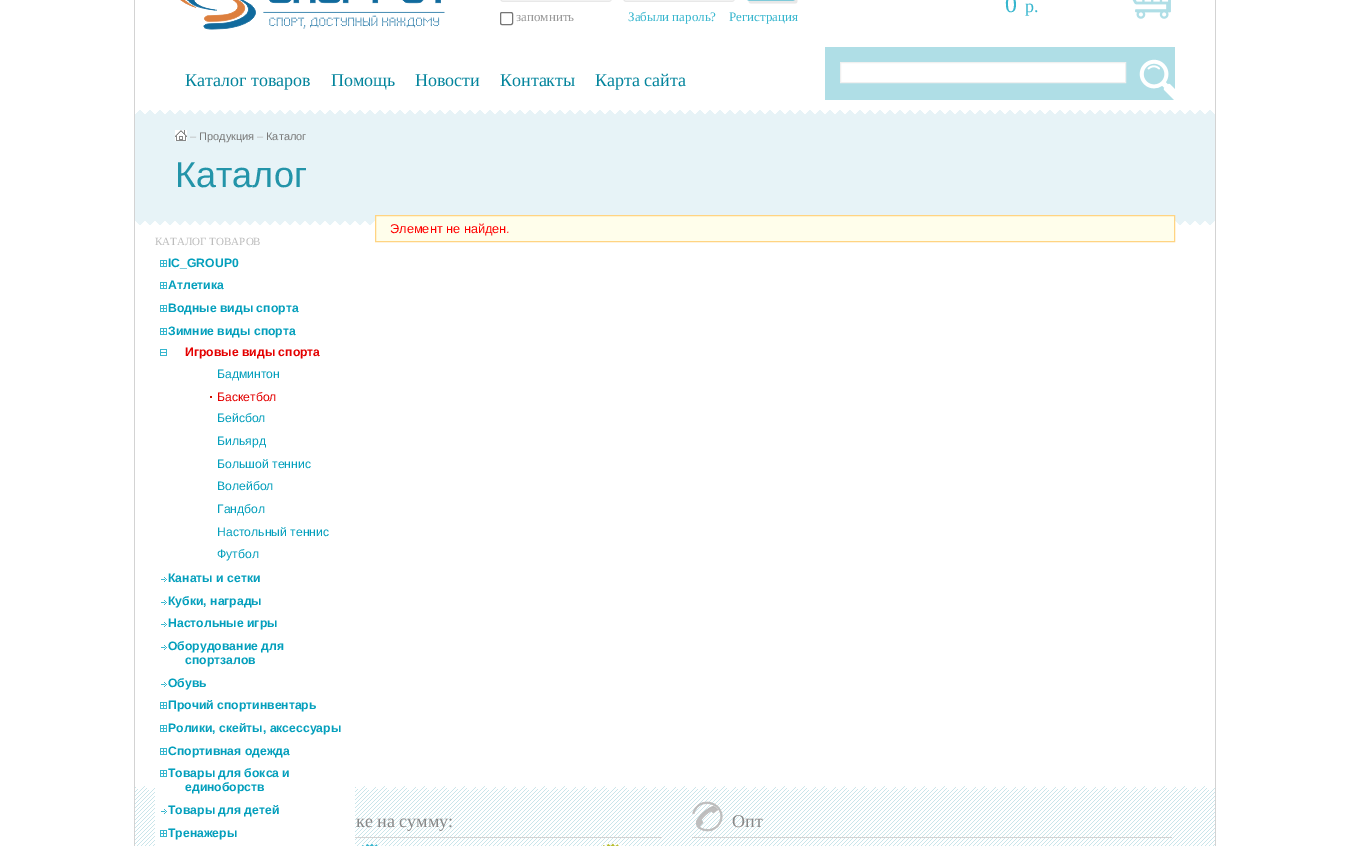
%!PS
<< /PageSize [1350 846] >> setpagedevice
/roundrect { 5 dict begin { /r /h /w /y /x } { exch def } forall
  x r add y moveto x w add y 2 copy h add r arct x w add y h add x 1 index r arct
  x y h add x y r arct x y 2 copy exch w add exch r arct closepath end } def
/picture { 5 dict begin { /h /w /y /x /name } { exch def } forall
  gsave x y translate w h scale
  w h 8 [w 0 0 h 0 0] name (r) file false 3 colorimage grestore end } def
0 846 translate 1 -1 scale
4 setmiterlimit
1 setgray
0 0 1350 846 rectfill
0.827 setgray
1215 0 1 846 rectfill
134 0 1 846 rectfill
(img1.rgb) 180 0 265 30 picture
/LiberationSerif-Regular [24 0 0 -24 0 0] selectfont
0.216 0.714 0.808 setrgbcolor
1005 12 moveto (0) show
/LiberationSerif-Regular [18 0 0 -18 0 0] selectfont
1025 12 moveto (р.) show
(img2.rgb) 1132 0 39 19 picture
(img3.rgb) 500 0 112 2 picture
(img3.rgb) 623 0 112 2 picture
(img4.rgb) 747 0 51 4 picture
0.463 setgray
500.5 12.5 12 12 1.5 roundrect stroke
/LiberationSerif-Regular [13 0 0 -13 0 0] selectfont
0.6 setgray
516 21 moveto (запомнить) show
0.216 0.714 0.808 setrgbcolor
628 21 moveto (Забыли пароль?) show
729 21 moveto (Регистрация) show
/LiberationSerif-Regular [18 0 0 -18 0 0] selectfont
0.016 0.522 0.616 setrgbcolor
185 86 moveto (Каталог товаров) show
331 86 moveto (Помощь) show
415 86 moveto (Новости) show
500 86 moveto (Контакты) show
595 86 moveto (Карта сайта) show
(img5.rgb) 825 47 350 53 picture
1 setgray
newpath 840.5 62.5 moveto 1125.5 62.5 lineto 1125.5 82.5 lineto 840.5 82.5 lineto closepath gsave fill grestore
0.941 setgray
stroke
(img6.rgb) 135 110 1080 43 picture
(img7.rgb) 175 130 12 11 picture
/LiberationSans-Italic [11 0 0 -11 0 0] selectfont
0.737 setgray
190 140 moveto (–) show
/LiberationSans-Regular [11 0 0 -11 0 0] selectfont
0.478 setgray
199 140 moveto (Продукция) show
/LiberationSans-Italic [11 0 0 -11 0 0] selectfont
0.737 setgray
257 140 moveto (–) show
/LiberationSans-Regular [11 0 0 -11 0 0] selectfont
0.478 setgray
266 140 moveto (Каталог) show
(img8.rgb) 135 153 1080 72 picture
/LiberationSans-Regular [36 0 0 -36 0 0] selectfont
0.137 0.58 0.663 setrgbcolor
175 187 moveto (Каталог) show
1 0.996 0.922 setrgbcolor
newpath 375.5 215.5 moveto 1174.5 215.5 lineto 1174.5 241.5 lineto 375.5 241.5 lineto closepath gsave fill grestore
1 0.831 0.51 setrgbcolor
stroke
/LiberationSans-Regular [12.75 0 0 -12.75 0 0] selectfont
1 0 0 setrgbcolor
390 233 moveto (Элемент не найден.) show
(img12.rgb) 135 786 1080 60 picture
1 setgray
155 786 200 60 rectfill
/LiberationSerif-Regular [11 0 0 -11 0 0] selectfont
0.737 setgray
155 245 moveto (КАТАЛОГ ТОВАРОВ) show
(img9.rgb) 160 260 7 7 picture
/LiberationSans-Bold [12.2 0 0 -12.2 0 0] selectfont
0.012 0.624 0.737 setrgbcolor
168 267 moveto (IC_GROUP0) show
(img9.rgb) 160 282 7 7 picture
168 289 moveto (Атлетика) show
(img9.rgb) 160 305 7 7 picture
168 312 moveto (Водные виды спорта) show
(img9.rgb) 160 328 7 7 picture
168 335 moveto (Зимние виды спорта) show
(img10.rgb) 160 349 7 7 picture
0.894 0 0 setrgbcolor
185 356 moveto (Игровые виды спорта) show
/LiberationSans-Regular [12.2 0 0 -12.2 0 0] selectfont
0.012 0.624 0.737 setrgbcolor
217 378 moveto (Бадминтон) show
0.8 0.075 0 setrgbcolor
210 396 2 2 rectfill
0.894 0 0 setrgbcolor
217 401 moveto (Баскетбол) show
0.012 0.624 0.737 setrgbcolor
217 422 moveto (Бейсбол) show
217 445 moveto (Бильярд) show
217 468 moveto (Большой теннис) show
217 490 moveto (Волейбол) show
217 513 moveto (Гандбол) show
217 536 moveto (Настольный теннис) show
217 558 moveto (Футбол) show
(img11.rgb) 161 577 6 5 picture
/LiberationSans-Bold [12.2 0 0 -12.2 0 0] selectfont
168 582 moveto (Канаты и сетки) show
(img11.rgb) 161 600 6 5 picture
168 605 moveto (Кубки, награды) show
(img11.rgb) 161 622 6 5 picture
168 627 moveto (Настольные игры) show
(img11.rgb) 161 645 6 5 picture
168 650 moveto (Оборудование для) show
185 664 moveto (спортзалов) show
(img11.rgb) 161 682 6 5 picture
168 687 moveto (Обувь) show
(img9.rgb) 160 702 7 7 picture
168 709 moveto (Прочий спортинвентарь) show
(img9.rgb) 160 725 7 7 picture
168 732 moveto (Ролики, скейты, аксессуары) show
(img9.rgb) 160 748 7 7 picture
168 755 moveto (Спортивная одежда) show
(img9.rgb) 160 770 7 7 picture
168 777 moveto (Товары для бокса и) show
185 791 moveto (единоборств) show
(img11.rgb) 161 809 6 5 picture
168 814 moveto (Товары для детей) show
(img9.rgb) 160 830 7 7 picture
168 837 moveto (Тренажеры) show
0.827 setgray
355 837 307 1 rectfill
/LiberationSerif-Regular [18 0 0 -18 0 0] selectfont
0.533 setgray
356 827 moveto (ке на сумму:) show
(img13.rgb) 361 843 261 3 picture
(img14.rgb) 692 801 31 31 picture
0.827 setgray
692 837 480 1 rectfill
0.533 setgray
732 827 moveto (Опт) show
showpage
